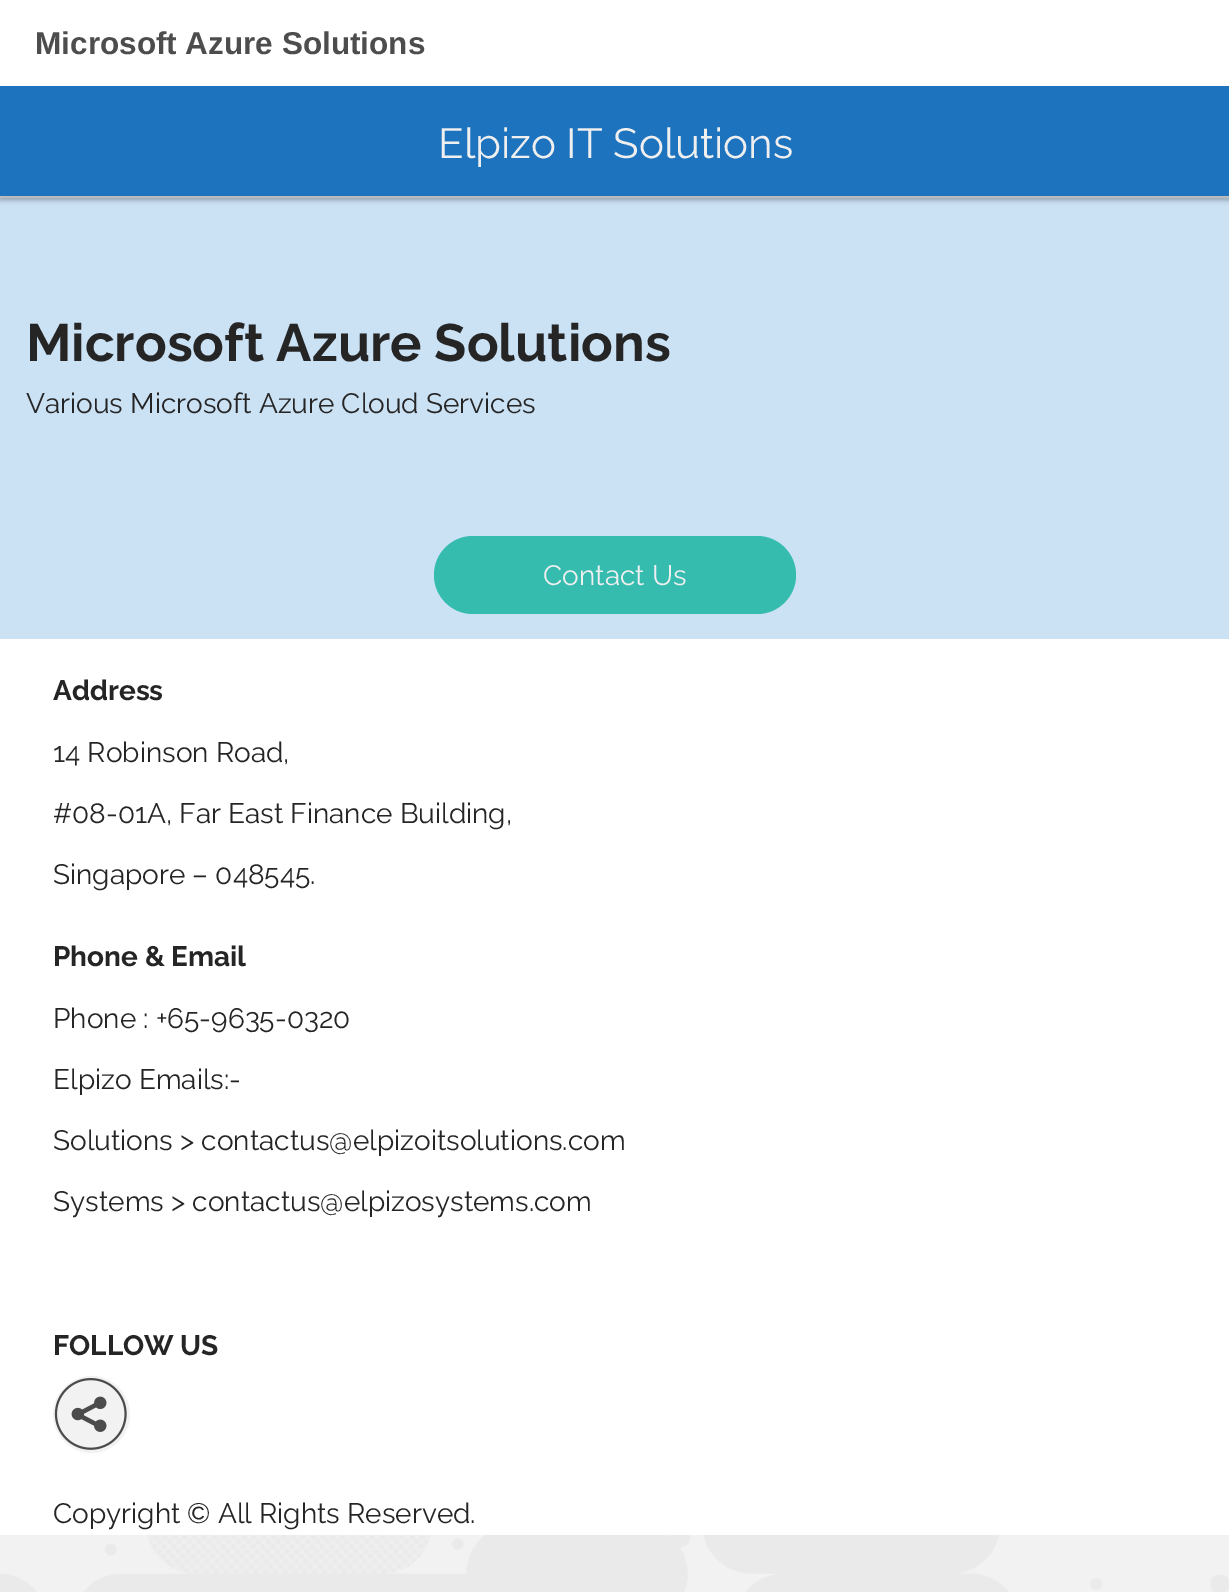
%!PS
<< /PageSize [1229 1592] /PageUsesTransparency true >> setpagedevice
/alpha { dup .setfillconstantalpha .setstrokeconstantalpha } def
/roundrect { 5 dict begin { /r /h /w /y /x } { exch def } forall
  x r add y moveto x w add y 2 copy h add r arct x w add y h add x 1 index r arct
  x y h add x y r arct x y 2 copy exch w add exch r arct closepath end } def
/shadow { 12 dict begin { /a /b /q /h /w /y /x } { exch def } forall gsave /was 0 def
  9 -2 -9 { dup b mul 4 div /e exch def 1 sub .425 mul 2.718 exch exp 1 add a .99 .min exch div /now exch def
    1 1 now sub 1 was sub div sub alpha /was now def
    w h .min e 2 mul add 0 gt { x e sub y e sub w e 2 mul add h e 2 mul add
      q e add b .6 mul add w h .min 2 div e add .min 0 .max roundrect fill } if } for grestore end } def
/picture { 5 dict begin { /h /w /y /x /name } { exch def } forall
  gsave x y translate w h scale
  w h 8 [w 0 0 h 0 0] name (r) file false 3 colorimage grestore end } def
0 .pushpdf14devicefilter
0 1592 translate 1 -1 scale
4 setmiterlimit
0.949 setgray
0 0 1229 1592 rectfill
(img1.rgb) 0 1535 1229 57 picture
0.796 0.882 0.957 setrgbcolor
0 198 1229 441 rectfill
0 setgray
0 2 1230 198 0 2.5 0.3 shadow
1 setgray
0 0 1229 86 rectfill
0.733 setgray
0 196 1229 2 rectfill
/LiberationSans-Bold [31.5 0 0 -31.5 0 0] selectfont
0.302 setgray
35 54 moveto (Microsoft Azure Solutions) show
0.118 0.451 0.745 setrgbcolor
0 86 1229 110 rectfill
/Raleway-Regular [42 0 0 -42 0 0] selectfont
0.937 setgray
438 158 moveto (Elpizo IT Solutions) show
/Raleway-Bold [52.5 0 0 -52.5 0 0] selectfont
0.145 setgray
26 361 moveto (Microsoft Azure Solutions) show
/Raleway-Regular [28 0 0 -28 0 0] selectfont
26 413 moveto (Various Microsoft Azure Cloud Services) show
0.208 0.737 0.686 setrgbcolor
434 536 362 78 39 roundrect fill
0.937 setgray
543 585 moveto (Contact Us) show
1 setgray
0 639 1229 896 rectfill
/Raleway-Bold [28 0 0 -28 0 0] selectfont
0.145 setgray
53 700 moveto (Address) show
/Raleway-Regular [28 0 0 -28 0 0] selectfont
53 762 moveto (14 Robinson Road,) show
53 823 moveto (#08-01A, Far East Finance Building,) show
53 884 moveto (Singapore – 048545.) show
/Raleway-Bold [28 0 0 -28 0 0] selectfont
53 966 moveto (Phone & Email) show
/Raleway-Regular [28 0 0 -28 0 0] selectfont
53 1028 moveto (Phone : +65-9635-0320) show
53 1089 moveto (Elpizo Emails:-) show
53 1150 moveto (Solutions > contactus@elpizoitsolutions.com) show
53 1211 moveto (Systems > contactus@elpizosystems.com) show
/Raleway-Bold [28 0 0 -28 0 0] selectfont
53 1355 moveto (FOLLOW US) show
0.949 setgray
newpath 91.5 1414.5 38.5 0 360 arc closepath fill
(img2.rgb) 54 1378 73 72 picture
/Raleway-Regular [28 0 0 -28 0 0] selectfont
0.145 setgray
53 1523 moveto (Copyright © All Rights Reserved.) show
.poppdf14devicefilter showpage
